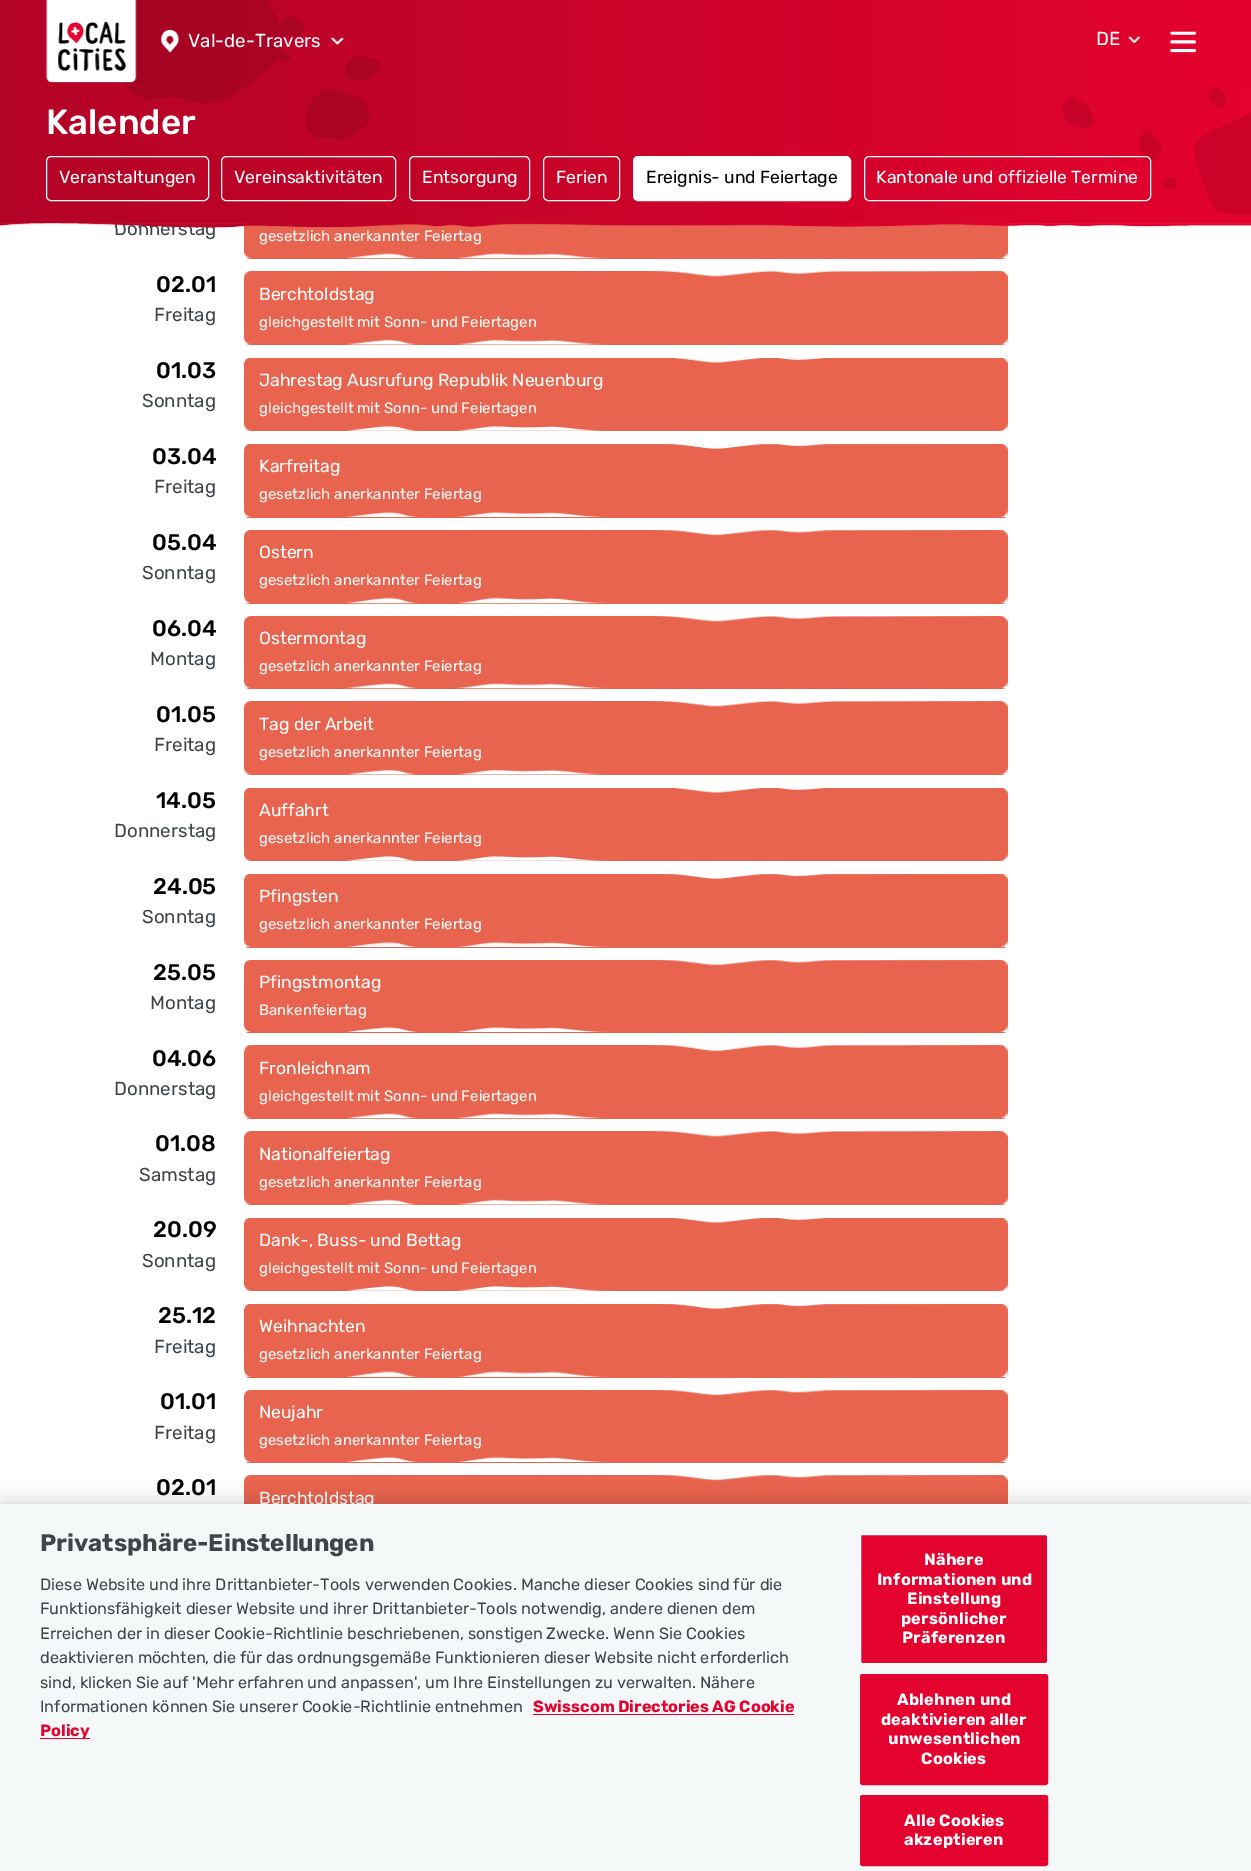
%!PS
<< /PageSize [1251 1871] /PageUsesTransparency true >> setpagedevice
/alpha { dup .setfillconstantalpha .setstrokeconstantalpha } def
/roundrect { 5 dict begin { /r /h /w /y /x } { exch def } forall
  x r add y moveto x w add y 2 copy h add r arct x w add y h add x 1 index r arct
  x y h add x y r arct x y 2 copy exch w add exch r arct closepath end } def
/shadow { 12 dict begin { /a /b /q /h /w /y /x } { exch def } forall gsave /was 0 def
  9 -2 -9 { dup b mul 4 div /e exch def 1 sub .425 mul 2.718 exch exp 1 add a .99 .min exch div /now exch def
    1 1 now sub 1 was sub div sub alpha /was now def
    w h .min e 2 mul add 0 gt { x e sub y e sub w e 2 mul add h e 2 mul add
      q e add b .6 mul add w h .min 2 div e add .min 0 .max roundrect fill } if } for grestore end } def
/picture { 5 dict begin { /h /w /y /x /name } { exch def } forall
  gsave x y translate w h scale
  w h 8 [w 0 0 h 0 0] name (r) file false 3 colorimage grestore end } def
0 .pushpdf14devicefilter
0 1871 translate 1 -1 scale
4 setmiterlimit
1 setgray
0 0 1251 1871 rectfill
/Rubik-Regular [18.75 0 0 -18.75 0 0] selectfont
0.243 0.267 0.286 setrgbcolor
114 235 moveto (Donnerstag) show
0.914 0.392 0.31 setrgbcolor
244 186 764 73 5 roundrect fill
gsave newpath 0 0 moveto 1251 0 lineto 1251 223 lineto 0 223 lineto closepath clip newpath
<< /ShadingType 2 /ColorSpace /DeviceRGB /Coords [0 111 1251 111] /Extend [true true] /Function << /FunctionType 2 /Domain [0 1] /C0 [0.702 0.012 0.149] /C1 [0.894 0.008 0.18] /N 1 >> >> shfill grestore
(img1.rgb) 124 0 257 140 picture
(img2.rgb) 46 0 91 83 picture
(img3.rgb) 161 30 19 23 picture
1 setgray
188 47 moveto (Val-de-Travers) show
(img4.rgb) 331 37 13 8 picture
1096 45 moveto (DE) show
(img5.rgb) 1128 36 12 7 picture
(img6.rgb) 1169 31 28 22 picture
/Rubik-Medium [35 0 0 -35 0 0] selectfont
46 134 moveto (Kalender) show
46.5 156.5 162 44 4.5 roundrect stroke
/Rubik-Regular [17.5 0 0 -17.5 0 0] selectfont
59 183 moveto (Veranstaltungen) show
221.5 156.5 174 44 4.5 roundrect stroke
234 183 moveto (Vereinsaktivitäten) show
409.5 156.5 120 44 4.5 roundrect stroke
422 183 moveto (Entsorgung) show
543.5 156.5 76 44 4.5 roundrect stroke
556 183 moveto (Ferien) show
633.5 156.5 217 44 4.5 roundrect gsave fill grestore
stroke
0 setgray
646 183 moveto (Ereignis- und Feiertage) show
(img7.rgb) 1063 88 188 127 picture
1 setgray
864.5 156.5 286 44 4.5 roundrect stroke
876 183 moveto (Kantonale und offizielle Termine) show
(img8.rgb) 0 223 1251 5 picture
/Rubik-Regular [15 0 0 -15 0 0] selectfont
259 241 moveto (gesetzlich anerkannter Feiertag) show
(img9.rgb) 244 251 764 8 picture
/Rubik-Medium [22.5 0 0 -22.5 0 0] selectfont
0 setgray
156 292 moveto (02.01) show
/Rubik-Regular [18.75 0 0 -18.75 0 0] selectfont
0.243 0.267 0.286 setrgbcolor
154 321 moveto (Freitag) show
0.914 0.392 0.31 setrgbcolor
244 271 764 74 5 roundrect fill
(img10.rgb) 244 271 764 7 picture
/Rubik-Regular [17.5 0 0 -17.5 0 0] selectfont
1 setgray
259 300 moveto (Berchtoldstag) show
/Rubik-Regular [15 0 0 -15 0 0] selectfont
259 327 moveto (gleichgestellt mit Sonn- und Feiertagen) show
(img11.rgb) 244 337 764 8 picture
/Rubik-Medium [22.5 0 0 -22.5 0 0] selectfont
0 setgray
156 378 moveto (01.03) show
/Rubik-Regular [18.75 0 0 -18.75 0 0] selectfont
0.243 0.267 0.286 setrgbcolor
142 407 moveto (Sonntag) show
0.914 0.392 0.31 setrgbcolor
244 358 764 73 5 roundrect fill
(img12.rgb) 244 358 764 6 picture
/Rubik-Regular [17.5 0 0 -17.5 0 0] selectfont
1 setgray
259 386 moveto (Jahrestag Ausrufung Republik Neuenburg) show
/Rubik-Regular [15 0 0 -15 0 0] selectfont
259 413 moveto (gleichgestellt mit Sonn- und Feiertagen) show
(img13.rgb) 244 423 764 8 picture
/Rubik-Medium [22.5 0 0 -22.5 0 0] selectfont
0 setgray
152 464 moveto (03.04) show
/Rubik-Regular [18.75 0 0 -18.75 0 0] selectfont
0.243 0.267 0.286 setrgbcolor
154 493 moveto (Freitag) show
0.914 0.392 0.31 setrgbcolor
244 444 764 74 5 roundrect fill
(img14.rgb) 244 444 764 7 picture
/Rubik-Regular [17.5 0 0 -17.5 0 0] selectfont
1 setgray
259 472 moveto (Karfreitag) show
/Rubik-Regular [15 0 0 -15 0 0] selectfont
259 499 moveto (gesetzlich anerkannter Feiertag) show
(img15.rgb) 244 510 764 7 picture
/Rubik-Medium [22.5 0 0 -22.5 0 0] selectfont
0 setgray
152 550 moveto (05.04) show
/Rubik-Regular [18.75 0 0 -18.75 0 0] selectfont
0.243 0.267 0.286 setrgbcolor
142 579 moveto (Sonntag) show
0.914 0.392 0.31 setrgbcolor
244 530 764 74 5 roundrect fill
(img16.rgb) 244 530 764 7 picture
/Rubik-Regular [17.5 0 0 -17.5 0 0] selectfont
1 setgray
259 558 moveto (Ostern) show
/Rubik-Regular [15 0 0 -15 0 0] selectfont
259 585 moveto (gesetzlich anerkannter Feiertag) show
(img17.rgb) 244 595 764 9 picture
/Rubik-Medium [22.5 0 0 -22.5 0 0] selectfont
0 setgray
152 636 moveto (06.04) show
/Rubik-Regular [18.75 0 0 -18.75 0 0] selectfont
0.243 0.267 0.286 setrgbcolor
150 665 moveto (Montag) show
0.914 0.392 0.31 setrgbcolor
244 616 764 73 5 roundrect fill
(img10.rgb) 244 616 764 7 picture
/Rubik-Regular [17.5 0 0 -17.5 0 0] selectfont
1 setgray
259 644 moveto (Ostermontag) show
/Rubik-Regular [15 0 0 -15 0 0] selectfont
259 671 moveto (gesetzlich anerkannter Feiertag) show
(img9.rgb) 244 681 764 8 picture
/Rubik-Medium [22.5 0 0 -22.5 0 0] selectfont
0 setgray
156 722 moveto (01.05) show
/Rubik-Regular [18.75 0 0 -18.75 0 0] selectfont
0.243 0.267 0.286 setrgbcolor
154 751 moveto (Freitag) show
0.914 0.392 0.31 setrgbcolor
244 701 764 74 5 roundrect fill
(img10.rgb) 244 701 764 7 picture
/Rubik-Regular [17.5 0 0 -17.5 0 0] selectfont
1 setgray
259 730 moveto (Tag der Arbeit) show
/Rubik-Regular [15 0 0 -15 0 0] selectfont
259 757 moveto (gesetzlich anerkannter Feiertag) show
(img11.rgb) 244 767 764 8 picture
/Rubik-Medium [22.5 0 0 -22.5 0 0] selectfont
0 setgray
156 808 moveto (14.05) show
/Rubik-Regular [18.75 0 0 -18.75 0 0] selectfont
0.243 0.267 0.286 setrgbcolor
114 837 moveto (Donnerstag) show
0.914 0.392 0.31 setrgbcolor
244 788 764 73 5 roundrect fill
(img12.rgb) 244 788 764 6 picture
/Rubik-Regular [17.5 0 0 -17.5 0 0] selectfont
1 setgray
259 816 moveto (Auffahrt) show
/Rubik-Regular [15 0 0 -15 0 0] selectfont
259 843 moveto (gesetzlich anerkannter Feiertag) show
(img13.rgb) 244 853 764 8 picture
/Rubik-Medium [22.5 0 0 -22.5 0 0] selectfont
0 setgray
153 894 moveto (24.05) show
/Rubik-Regular [18.75 0 0 -18.75 0 0] selectfont
0.243 0.267 0.286 setrgbcolor
142 923 moveto (Sonntag) show
0.914 0.392 0.31 setrgbcolor
244 874 764 74 5 roundrect fill
(img14.rgb) 244 874 764 7 picture
/Rubik-Regular [17.5 0 0 -17.5 0 0] selectfont
1 setgray
259 902 moveto (Pfingsten) show
/Rubik-Regular [15 0 0 -15 0 0] selectfont
259 929 moveto (gesetzlich anerkannter Feiertag) show
(img15.rgb) 244 940 764 7 picture
/Rubik-Medium [22.5 0 0 -22.5 0 0] selectfont
0 setgray
153 980 moveto (25.05) show
/Rubik-Regular [18.75 0 0 -18.75 0 0] selectfont
0.243 0.267 0.286 setrgbcolor
150 1009 moveto (Montag) show
0.914 0.392 0.31 setrgbcolor
244 960 764 73 5 roundrect fill
(img16.rgb) 244 960 764 7 picture
/Rubik-Regular [17.5 0 0 -17.5 0 0] selectfont
1 setgray
259 988 moveto (Pfingstmontag) show
/Rubik-Regular [15 0 0 -15 0 0] selectfont
259 1015 moveto (Bankenfeiertag) show
(img15.rgb) 244 1025 764 7 picture
/Rubik-Medium [22.5 0 0 -22.5 0 0] selectfont
0 setgray
152 1066 moveto (04.06) show
/Rubik-Regular [18.75 0 0 -18.75 0 0] selectfont
0.243 0.267 0.286 setrgbcolor
114 1095 moveto (Donnerstag) show
0.914 0.392 0.31 setrgbcolor
244 1045 764 74 5 roundrect fill
(img18.rgb) 244 1045 764 8 picture
/Rubik-Regular [17.5 0 0 -17.5 0 0] selectfont
1 setgray
259 1074 moveto (Fronleichnam) show
/Rubik-Regular [15 0 0 -15 0 0] selectfont
259 1101 moveto (gleichgestellt mit Sonn- und Feiertagen) show
(img9.rgb) 244 1111 764 8 picture
/Rubik-Medium [22.5 0 0 -22.5 0 0] selectfont
0 setgray
155 1151 moveto (01.08) show
/Rubik-Regular [18.75 0 0 -18.75 0 0] selectfont
0.243 0.267 0.286 setrgbcolor
139 1181 moveto (Samstag) show
0.914 0.392 0.31 setrgbcolor
244 1131 764 74 5 roundrect fill
(img10.rgb) 244 1131 764 7 picture
/Rubik-Regular [17.5 0 0 -17.5 0 0] selectfont
1 setgray
259 1160 moveto (Nationalfeiertag) show
/Rubik-Regular [15 0 0 -15 0 0] selectfont
259 1187 moveto (gesetzlich anerkannter Feiertag) show
(img11.rgb) 244 1197 764 8 picture
/Rubik-Medium [22.5 0 0 -22.5 0 0] selectfont
0 setgray
153 1237 moveto (20.09) show
/Rubik-Regular [18.75 0 0 -18.75 0 0] selectfont
0.243 0.267 0.286 setrgbcolor
142 1267 moveto (Sonntag) show
0.914 0.392 0.31 setrgbcolor
244 1218 764 73 5 roundrect fill
(img12.rgb) 244 1218 764 6 picture
/Rubik-Regular [17.5 0 0 -17.5 0 0] selectfont
1 setgray
259 1246 moveto (Dank-, Buss- und Bettag) show
/Rubik-Regular [15 0 0 -15 0 0] selectfont
259 1273 moveto (gleichgestellt mit Sonn- und Feiertagen) show
(img13.rgb) 244 1283 764 8 picture
/Rubik-Medium [22.5 0 0 -22.5 0 0] selectfont
0 setgray
158 1323 moveto (25.12) show
/Rubik-Regular [18.75 0 0 -18.75 0 0] selectfont
0.243 0.267 0.286 setrgbcolor
154 1353 moveto (Freitag) show
0.914 0.392 0.31 setrgbcolor
244 1304 764 74 5 roundrect fill
(img14.rgb) 244 1304 764 7 picture
/Rubik-Regular [17.5 0 0 -17.5 0 0] selectfont
1 setgray
259 1332 moveto (Weihnachten) show
/Rubik-Regular [15 0 0 -15 0 0] selectfont
259 1359 moveto (gesetzlich anerkannter Feiertag) show
(img19.rgb) 244 1368 764 9 picture
/Rubik-Medium [22.5 0 0 -22.5 0 0] selectfont
0 setgray
160 1409 moveto (01.01) show
/Rubik-Regular [18.75 0 0 -18.75 0 0] selectfont
0.243 0.267 0.286 setrgbcolor
154 1439 moveto (Freitag) show
0.914 0.392 0.31 setrgbcolor
244 1390 764 73 5 roundrect fill
(img16.rgb) 244 1390 764 7 picture
/Rubik-Regular [17.5 0 0 -17.5 0 0] selectfont
1 setgray
259 1418 moveto (Neujahr) show
/Rubik-Regular [15 0 0 -15 0 0] selectfont
259 1445 moveto (gesetzlich anerkannter Feiertag) show
(img15.rgb) 244 1455 764 7 picture
/Rubik-Medium [22.5 0 0 -22.5 0 0] selectfont
0 setgray
156 1495 moveto (02.01) show
0.914 0.392 0.31 setrgbcolor
244 1475 764 74 5 roundrect fill
(img16.rgb) 244 1475 764 7 picture
/Rubik-Regular [17.5 0 0 -17.5 0 0] selectfont
1 setgray
259 1504 moveto (Berchtoldstag) show
0 setgray
0 1504 1251 367 0 11 0.2 shadow
0.961 0.973 0.976 setrgbcolor
0 1504 1251 367 rectfill
/Rubik-Bold [24 0 0 -24 0 0] selectfont
0.243 0.267 0.286 setrgbcolor
40 1551 moveto (Privatsphäre-Einstellungen) show
/Rubik-Regular [16.25 0 0 -16.25 0 0] selectfont
40 1590 moveto (Diese Website und ihre Drittanbieter-Tools verwenden Cookies. Manche dieser Cookies sind für die) show
40 1614 moveto (Funktionsfähigkeit dieser Website und ihrer Drittanbieter-Tools notwendig, andere dienen dem) show
40 1639 moveto (Erreichen der in dieser Cookie-Richtlinie beschriebenen, sonstigen Zwecke. Wenn Sie Cookies) show
40 1663 moveto (deaktivieren möchten, die für das ordnungsgemäße Funktionieren dieser Website nicht erforderlich) show
40 1688 moveto (sind, klicken Sie auf 'Mehr erfahren und anpassen', um Ihre Einstellungen zu verwalten. Nähere) show
40 1712 moveto (Informationen können Sie unserer Cookie-Richtlinie entnehmen) show
/Rubik-Bold [16.25 0 0 -16.25 0 0] selectfont
0.894 0.008 0.18 setrgbcolor
533 1712 moveto (Swisscom Directories AG Cookie) show
533 1714 261 1 rectfill
40 1738 50 1 rectfill
40 1736 moveto (Policy) show
860.5 1534.5 187 129 2 roundrect gsave fill grestore
1 setgray
stroke
924 1565 moveto 0.2 0 (Nähere) ashow
877 1585 moveto 0.2 0 (Informationen und) ashow
907 1604 moveto 0.2 0 (Einstellung) ashow
901 1624 moveto 0.2 0 (persönlicher) ashow
902 1643 moveto 0.2 0 (Präferenzen) ashow
0.894 0.008 0.18 setrgbcolor
860.5 1674.5 187 110 2 roundrect gsave fill grestore
stroke
1 setgray
897 1705 moveto 0.2 0 (Ablehnen und) ashow
881 1725 moveto 0.2 0 (deaktivieren aller) ashow
888 1744 moveto 0.2 0 (unwesentlichen) ashow
921 1764 moveto 0.2 0 (Cookies) ashow
0.894 0.008 0.18 setrgbcolor
860.5 1795.5 187 70 2 roundrect gsave fill grestore
stroke
1 setgray
904 1826 moveto 0.2 0 (Alle Cookies) ashow
904 1845 moveto 0.2 0 (akzeptieren) ashow
.poppdf14devicefilter showpage
